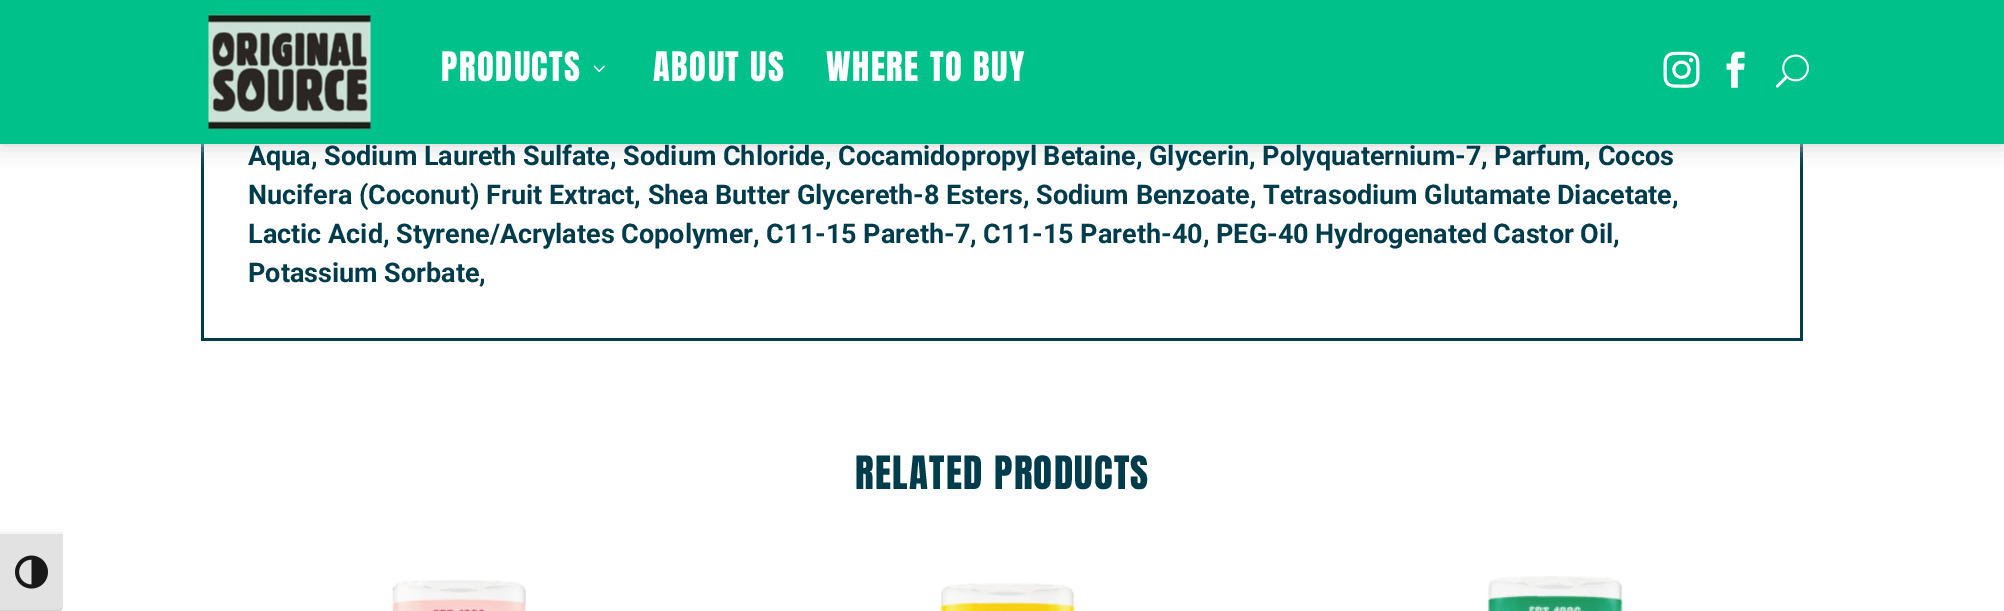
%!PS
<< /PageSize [2004 611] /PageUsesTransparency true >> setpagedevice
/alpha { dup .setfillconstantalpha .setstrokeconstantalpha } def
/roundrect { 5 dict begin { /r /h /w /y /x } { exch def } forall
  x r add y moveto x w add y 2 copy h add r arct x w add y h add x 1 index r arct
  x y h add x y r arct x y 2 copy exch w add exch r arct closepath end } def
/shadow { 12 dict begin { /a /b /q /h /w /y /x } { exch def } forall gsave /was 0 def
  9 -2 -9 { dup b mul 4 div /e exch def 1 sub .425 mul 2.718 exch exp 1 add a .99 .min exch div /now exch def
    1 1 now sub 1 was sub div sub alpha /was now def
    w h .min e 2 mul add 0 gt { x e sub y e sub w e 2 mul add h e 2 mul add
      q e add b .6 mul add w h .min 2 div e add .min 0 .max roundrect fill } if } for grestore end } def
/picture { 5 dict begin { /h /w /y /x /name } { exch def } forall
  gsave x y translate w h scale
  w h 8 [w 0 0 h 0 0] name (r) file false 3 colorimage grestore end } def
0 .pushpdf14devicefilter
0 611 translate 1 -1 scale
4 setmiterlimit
1 setgray
0 0 2004 611 rectfill
0.004 0.235 0.298 setrgbcolor
1800 144 3 197 rectfill
201 338 1602 3 rectfill
201 144 3 197 rectfill
0.804 setgray
0 0 2004 144 0 11 1 shadow
0 0.757 0.541 setrgbcolor
0 0 2004 144 rectfill
(img1.rgb) 208 14 163 116 picture
/Anton-Regular [34.5 0 0 -34.5 0 0] selectfont
1 setgray
441 81 moveto 1.5 0 (PRODUCTS) ashow
(img2.rgb) 593 65 12 7 picture
653 81 moveto 1.5 0 (ABOUT US) ashow
826 81 moveto 1.5 0 (WHERE TO BUY) ashow
(img3.rgb) 1663 51 37 37 picture
(img4.rgb) 1726 51 19 37 picture
(img5.rgb) 1775 54 34 34 picture
/Roboto-Bold [27 0 0 -27 0 0] selectfont
0.004 0.235 0.298 setrgbcolor
248 165 moveto (Aqua, Sodium Laureth Sulfate, Sodium Chloride, Cocamidopropyl Betaine, Glycerin, Polyquaternium-7, Parfum, Cocos) show
248 204 moveto (Nucifera \(Coconut\) Fruit Extract, Shea Butter Glycereth-8 Esters, Sodium Benzoate, Tetrasodium Glutamate Diacetate,) show
248 243 moveto (Lactic Acid, Styrene/Acrylates Copolymer, C11-15 Pareth-7, C11-15 Pareth-40, PEG-40 Hydrogenated Castor Oil,) show
248 282 moveto (Potassium Sorbate,) show
/Anton-Regular [39 0 0 -39 0 0] selectfont
855 489 moveto 1.25 0 (RELATED PRODUCTS) ashow
(img6.rgb) 392 579 134 32 picture
(img7.rgb) 940 583 135 28 picture
(img8.rgb) 1487 576 136 35 picture
0.886 setgray
newpath 0 533 moveto 63 533 lineto 63 606 lineto 63 609.5 60.5 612 57 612 curveto 0 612 lineto closepath fill
0.961 setgray
0 532 63 2 rectfill
0.824 setgray
newpath 0 610 moveto 0 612 lineto 57 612 lineto 60 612 63 609 63 606 curveto 63 608 60 610 57 610 curveto closepath fill
(img9.rgb) 15 555 33 34 picture
.poppdf14devicefilter showpage
